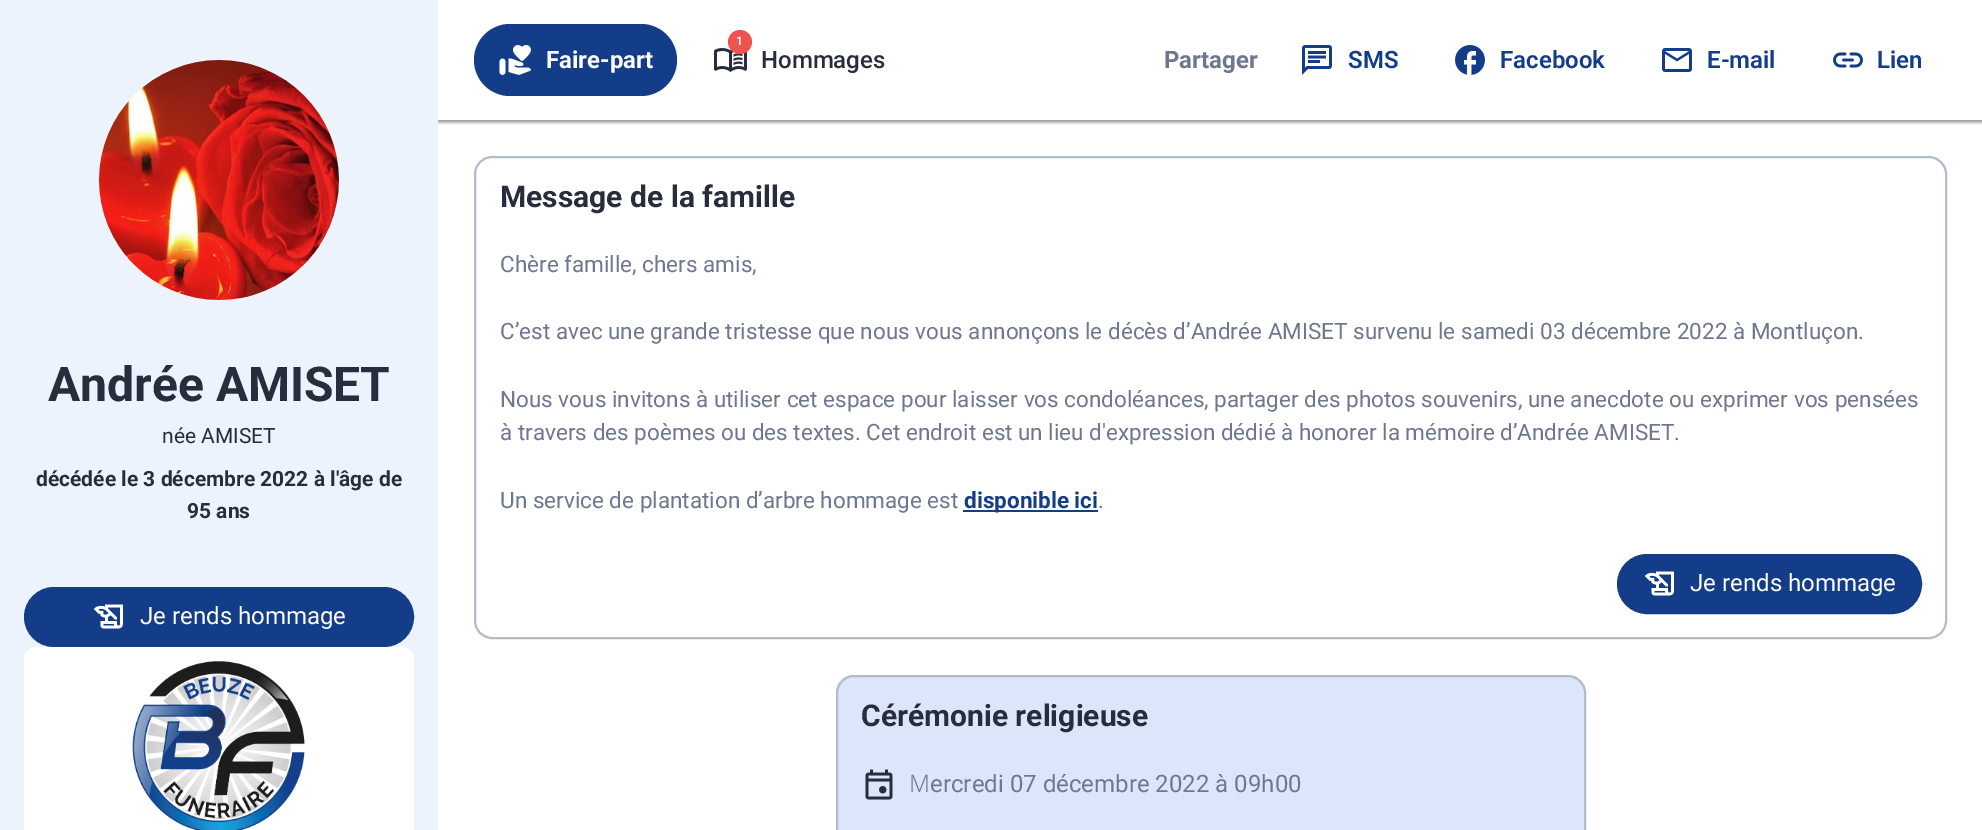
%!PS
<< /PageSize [1982 830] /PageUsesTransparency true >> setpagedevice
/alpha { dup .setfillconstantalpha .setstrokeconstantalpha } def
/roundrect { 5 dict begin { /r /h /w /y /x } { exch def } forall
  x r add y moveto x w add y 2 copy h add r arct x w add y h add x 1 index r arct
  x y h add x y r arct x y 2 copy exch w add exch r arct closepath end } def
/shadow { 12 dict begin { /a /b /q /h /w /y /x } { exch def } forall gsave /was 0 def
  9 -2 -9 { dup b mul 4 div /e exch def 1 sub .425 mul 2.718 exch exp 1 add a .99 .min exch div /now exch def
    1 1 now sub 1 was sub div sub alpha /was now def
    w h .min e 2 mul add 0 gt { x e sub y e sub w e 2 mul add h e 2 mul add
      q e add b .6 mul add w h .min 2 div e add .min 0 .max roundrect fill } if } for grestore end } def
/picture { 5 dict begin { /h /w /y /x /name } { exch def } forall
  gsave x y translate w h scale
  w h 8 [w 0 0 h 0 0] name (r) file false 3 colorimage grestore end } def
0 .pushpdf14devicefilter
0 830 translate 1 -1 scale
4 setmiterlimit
1 setgray
0 0 1982 830 rectfill
gsave
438 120 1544 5 rectclip
0 setgray
437 0 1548 123 0 2 0.15 shadow
grestore
gsave
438 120 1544 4 rectclip
0 setgray
438 2 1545 120 0 1.5 0.3 shadow
grestore
0.929 0.953 0.988 setrgbcolor
0 0 438 830 rectfill
(img1.rgb) 99 60 240 240 picture
/Roboto-Bold [48 0 0 -48 0 0] selectfont
0.157 0.176 0.243 setrgbcolor
48 401 moveto (Andrée AMISET) show
/Roboto-Regular [21 0 0 -21 0 0] selectfont
162 443 moveto (née AMISET) show
/Roboto-Bold [21 0 0 -21 0 0] selectfont
36 486 moveto (décédée le 3 décembre 2022 à l'âge de) show
187 518 moveto (95 ans) show
0.078 0.239 0.537 setrgbcolor
25 588 388 58 29 roundrect gsave fill grestore
2 setlinewidth
stroke
(img2.rgb) 93 604 30 25 picture
/Roboto-Regular [24 0 0 -24 0 0] selectfont
1 setgray
140 624 moveto (Je rends hommage) show
newpath 36 647 moveto 402 647 lineto 408.5 647 414 652.5 414 659 curveto 414 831 lineto 24 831 lineto 24 659 lineto 24 652.5 29.5 647 36 647 curveto closepath fill
(img3.rgb) 132 661 173 169 picture
0.078 0.239 0.537 setrgbcolor
474 24 203 72 36 roundrect fill
(img4.rgb) 499 45 32 30 picture
/Roboto-Bold [24 0 0 -24 0 0] selectfont
1 setgray
546 68 moveto (Faire-part) show
(img5.rgb) 714 48 33 24 picture
0.937 0.325 0.314 setrgbcolor
newpath 740 42 12 0 360 arc closepath fill
/Roboto-Medium [12 0 0 -12 0 0] selectfont
1 setgray
736 45 moveto (1) show
/Roboto-Medium [24 0 0 -24 0 0] selectfont
0.157 0.176 0.243 setrgbcolor
761 68 moveto (Hommages) show
/Roboto-Bold [24 0 0 -24 0 0] selectfont
0.431 0.467 0.565 setrgbcolor
1164 68 moveto (Partager) show
(img6.rgb) 1302 45 30 30 picture
/Roboto-SemiBold [24 0 0 -24 0 0] selectfont
0.078 0.239 0.537 setrgbcolor
1348 68 moveto (SMS) show
(img7.rgb) 1455 45 30 30 picture
1500 68 moveto (Facebook) show
(img8.rgb) 1662 48 30 24 picture
1707 68 moveto (E-mail) show
(img9.rgb) 1833 52 30 16 picture
1877 68 moveto (Lien) show
0.714 0.733 0.792 setrgbcolor
475 157 1471 481 17 roundrect stroke
/Roboto-Bold [30 0 0 -30 0 0] selectfont
0.157 0.176 0.243 setrgbcolor
500 207 moveto (Message de la famille) show
/Roboto-Regular [22.5 0 0 -22.5 0 0] selectfont
0.431 0.467 0.565 setrgbcolor
500 272 moveto (Chère famille, chers amis,) show
500 339 moveto (C’est avec une grande tristesse que nous vous annonçons le décès d’Andrée AMISET survenu le samedi 03 décembre 2022 à Montluçon.) show
500 407 moveto (Nous vous invitons à utiliser cet espace pour laisser vos condoléances, partager des photos souvenirs, une anecdote ou exprimer vos pensées) show
500 440 moveto (à travers des poèmes ou des textes. Cet endroit est un lieu d'expression dédié à honorer la mémoire d’Andrée AMISET.) show
500 508 moveto (Un service de plantation d’arbre hommage est) show
0.078 0.239 0.537 setrgbcolor
963 510 135 2 rectfill
/Roboto-Bold [22.5 0 0 -22.5 0 0] selectfont
964 508 moveto (disponible ici) show
/Roboto-Regular [22.5 0 0 -22.5 0 0] selectfont
0.431 0.467 0.565 setrgbcolor
1098 508 moveto (.) show
0.078 0.239 0.537 setrgbcolor
1618 555 303 58 29 roundrect gsave fill grestore
stroke
(img2.rgb) 1644 571 30 25 picture
/Roboto-Regular [24 0 0 -24 0 0] selectfont
1 setgray
1690 591 moveto (Je rends hommage) show
0.859 0.902 0.98 setrgbcolor
newpath 854 675 moveto 1568 675 lineto 1578 675 1586 683 1586 693 curveto 1586 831 lineto 836 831 lineto 836 693 lineto 836 683 844 675 854 675 curveto closepath fill
0.714 0.733 0.792 setrgbcolor
837 676 748 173 17 roundrect stroke
/Roboto-Bold [30 0 0 -30 0 0] selectfont
0.157 0.176 0.243 setrgbcolor
861 726 moveto (Cérémonie religieuse) show
(img10.rgb) 865 769 28 31 picture
/NotoSans-Light [24 0 0 -24 0 0] selectfont
0.431 0.467 0.565 setrgbcolor
909 792 moveto (M) show
/Roboto-Regular [24 0 0 -24 0 0] selectfont
930 792 moveto (ercredi 07 décembre 2022 à 09h00) show
.poppdf14devicefilter showpage
